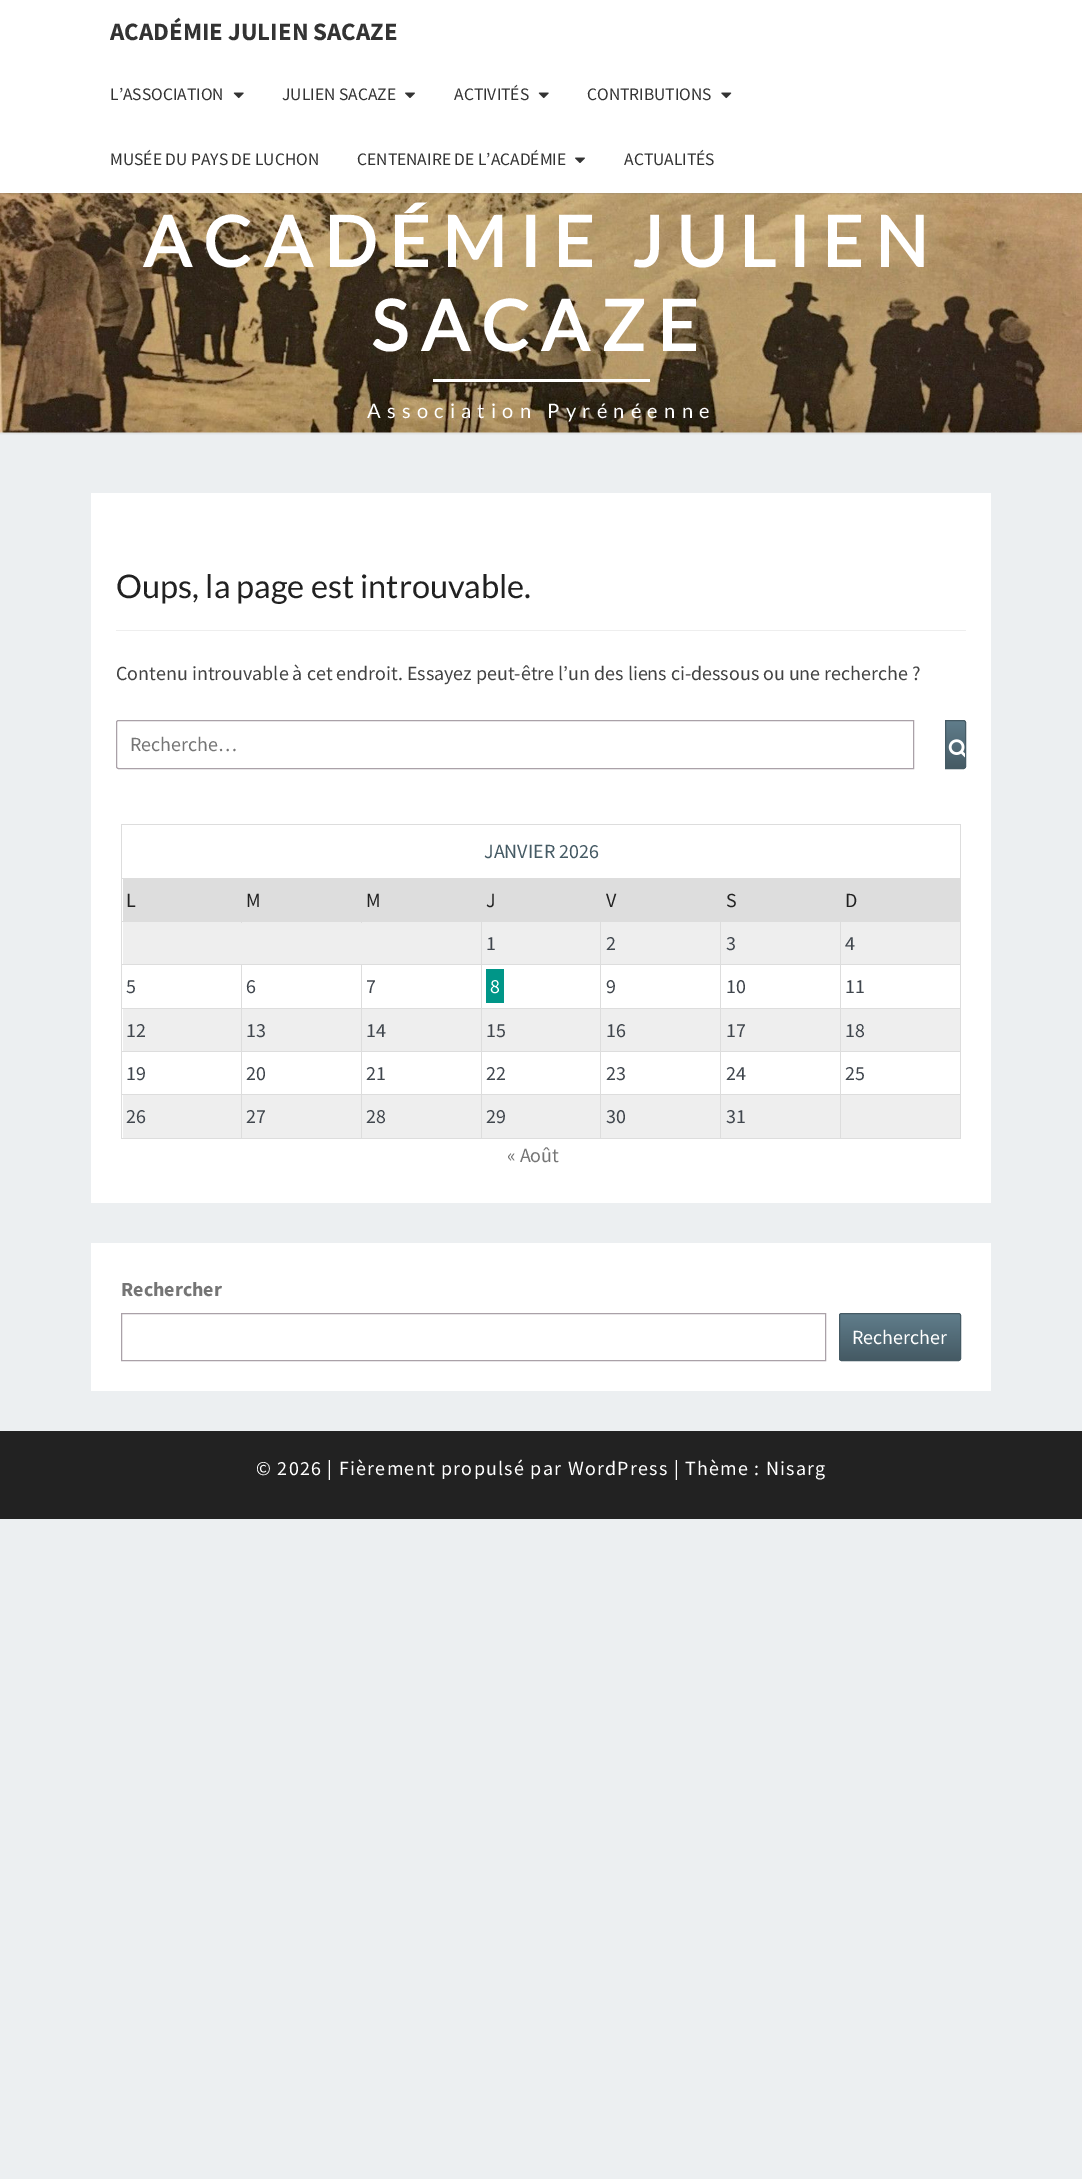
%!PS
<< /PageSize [1082 2179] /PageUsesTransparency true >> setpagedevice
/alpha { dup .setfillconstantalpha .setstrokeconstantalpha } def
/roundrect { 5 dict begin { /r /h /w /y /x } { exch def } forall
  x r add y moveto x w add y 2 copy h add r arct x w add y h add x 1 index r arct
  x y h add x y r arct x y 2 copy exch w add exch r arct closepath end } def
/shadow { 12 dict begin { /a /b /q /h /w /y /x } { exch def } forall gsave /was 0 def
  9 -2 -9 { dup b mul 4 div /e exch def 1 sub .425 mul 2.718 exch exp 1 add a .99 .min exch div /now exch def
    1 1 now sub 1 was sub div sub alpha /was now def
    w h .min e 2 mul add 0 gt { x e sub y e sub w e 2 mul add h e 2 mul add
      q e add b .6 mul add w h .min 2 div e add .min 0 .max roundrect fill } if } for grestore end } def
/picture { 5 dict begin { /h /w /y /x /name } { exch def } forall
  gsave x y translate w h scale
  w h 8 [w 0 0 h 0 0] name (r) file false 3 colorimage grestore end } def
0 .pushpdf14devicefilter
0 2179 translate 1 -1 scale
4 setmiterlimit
0.925 0.937 0.945 setrgbcolor
0 0 1082 2179 rectfill
0.714 setgray
-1 191 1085 243 0 1 0.3 shadow
(img4.rgb) 0 193 1082 240 picture
0.392 setgray
0 1 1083 193 0 0.5 0.2 shadow
1 setgray
0 0 1082 193 rectfill
/SourceSansPro-Bold [25 0 0 -25 0 0] selectfont
0.2 setgray
110 40 moveto (ACADÉMIE JULIEN SACAZE) show
/SourceSansPro-Regular [17.5 0 0 -17.5 0 0] selectfont
110 100 moveto (L’ASSOCIATION) show
(img1.rgb) 233 92 11 7 picture
282 100 moveto (JULIEN SACAZE) show
(img2.rgb) 405 92 10 6 picture
454 100 moveto (ACTIVITÉS) show
(img1.rgb) 538 92 11 7 picture
587 100 moveto (CONTRIBUTIONS) show
(img3.rgb) 721 92 11 7 picture
110 165 moveto (MUSÉE DU PAYS DE LUCHON) show
357 165 moveto (CENTENAIRE DE L’ACADÉMIE) show
(img2.rgb) 575 157 10 6 picture
624 165 moveto (ACTUALITÉS) show
/Lato-Bold [70 0 0 -70 0 0] selectfont
1 setgray
143 267 moveto 12.5 0 (ACADÉMIE JULIEN) ashow
371 351 moveto 12.5 0 (SACAZE) ashow
433 379 217 3 rectfill
/Lato-Regular [20 0 0 -20 0 0] selectfont
367 418 moveto 6.25 0 (Association Pyrénéenne) ashow
91 493 900 710 rectfill
0.933 setgray
116 630 850 1 rectfill
/Lato-Regular [32.5 0 0 -32.5 0 0] selectfont
0.129 setgray
116 598 moveto (Oups, la page est introuvable.) show
/SourceSansPro-Regular [20 0 0 -20 0 0] selectfont
0.259 setgray
116 680 moveto (Contenu introuvable à cet endroit. Essayez peut-être l’un des liens ci-dessous ou une recherche ?) show
0.667 0.631 0.659 setrgbcolor
newpath 118.5 720.5 moveto 913.5 720.5 lineto 913.5 768.5 lineto 118.5 768.5 lineto 117.5 768.5 116.5 767.5 116.5 766.5 curveto 116.5 722.5 lineto 116.5 721.5 117.5 720.5 118.5 720.5 curveto closepath stroke
0.459 setgray
130 751 moveto (Recherche…) show
gsave newpath 946 721 moveto 966 721 lineto 966 768 lineto 946 768 lineto closepath clip newpath
<< /ShadingType 2 /ColorSpace /DeviceRGB /Coords [956 721 956 768] /Extend [true true] /Function << /FunctionType 2 /Domain [0 1] /C0 [0.376 0.49 0.545] /C1 [0.271 0.353 0.392] /N 1 >> >> shfill grestore
0.271 0.353 0.392 setrgbcolor
newpath 945.5 720.5 moveto 963.5 720.5 lineto 964.5 720.5 965.5 721.5 965.5 722.5 curveto 965.5 766.5 lineto 965.5 767.5 964.5 768.5 963.5 768.5 curveto 945.5 768.5 lineto closepath stroke
(img5.rgb) 948 739 17 19 picture
0.867 setgray
121 824 840 1 rectfill
960 824 1 315 rectfill
121 1138 840 1 rectfill
121 824 1 315 rectfill
0.271 0.353 0.392 setrgbcolor
484 858 moveto (JANVIER 2026) show
0.867 setgray
123 879 118 42 rectfill
361 878 600 1 rectfill
0.933 setgray
123 922 837 42 rectfill
0.867 setgray
840 921 121 1 rectfill
840 964 121 1 rectfill
840 1008 121 1 rectfill
0.933 setgray
123 1009 837 42 rectfill
0.867 setgray
840 1051 121 1 rectfill
840 1094 121 1 rectfill
0.933 setgray
123 1095 837 43 rectfill
0.867 setgray
840 1094 1 45 rectfill
720 1094 121 1 rectfill
840 1051 1 44 rectfill
720 1051 121 1 rectfill
840 1008 1 45 rectfill
720 1008 121 1 rectfill
840 964 1 45 rectfill
720 964 121 1 rectfill
840 921 1 44 rectfill
720 921 121 1 rectfill
720 1094 1 45 rectfill
600 1094 121 1 rectfill
720 1051 1 44 rectfill
600 1051 121 1 rectfill
720 1008 1 45 rectfill
600 1008 121 1 rectfill
720 964 1 45 rectfill
600 964 121 1 rectfill
720 921 1 44 rectfill
600 921 121 1 rectfill
600 1094 1 45 rectfill
481 1094 120 1 rectfill
600 1051 1 44 rectfill
481 1051 120 1 rectfill
600 1008 1 45 rectfill
481 1008 120 1 rectfill
600 964 1 45 rectfill
481 964 120 1 rectfill
600 921 1 44 rectfill
481 921 120 1 rectfill
481 1094 1 45 rectfill
361 1094 122 1 rectfill
481 1051 1 44 rectfill
361 1051 122 1 rectfill
481 1008 1 45 rectfill
361 1008 122 1 rectfill
481 964 1 45 rectfill
361 964 122 1 rectfill
481 921 1 44 rectfill
121 921 362 1 rectfill
361 878 1 45 rectfill
241 878 122 1 rectfill
241 878 1 45 rectfill
121 878 122 1 rectfill
0.129 setgray
126 907 moveto (L) show
0.867 setgray
242 879 119 42 rectfill
0.129 setgray
246 907 moveto (M) show
0.867 setgray
362 879 598 42 rectfill
0.129 setgray
366 907 moveto (M) show
486 907 moveto (J) show
606 907 moveto (V) show
726 907 moveto (S) show
845 907 moveto (D) show
0.251 0.275 0.302 setrgbcolor
486 950 moveto (1) show
606 950 moveto (2) show
726 950 moveto (3) show
845 950 moveto (4) show
0.867 setgray
361 1094 1 45 rectfill
241 1094 122 1 rectfill
361 1051 1 44 rectfill
241 1051 122 1 rectfill
361 1008 1 45 rectfill
241 1008 122 1 rectfill
361 964 1 45 rectfill
241 964 122 1 rectfill
241 1094 1 45 rectfill
121 1094 122 1 rectfill
241 1051 1 44 rectfill
121 1051 122 1 rectfill
241 1008 1 45 rectfill
121 1008 122 1 rectfill
241 964 1 45 rectfill
121 964 122 1 rectfill
0.251 0.275 0.302 setrgbcolor
126 993 moveto (5) show
246 993 moveto (6) show
366 993 moveto (7) show
0 0.588 0.533 setrgbcolor
486 969 18 34 rectfill
1 setgray
490 993 moveto (8) show
0.251 0.275 0.302 setrgbcolor
606 993 moveto (9) show
726 993 moveto (10) show
845 993 moveto (11) show
126 1037 moveto (12) show
246 1037 moveto (13) show
366 1037 moveto (14) show
486 1037 moveto (15) show
606 1037 moveto (16) show
726 1037 moveto (17) show
845 1037 moveto (18) show
126 1080 moveto (19) show
246 1080 moveto (20) show
366 1080 moveto (21) show
486 1080 moveto (22) show
606 1080 moveto (23) show
726 1080 moveto (24) show
845 1080 moveto (25) show
126 1123 moveto (26) show
246 1123 moveto (27) show
366 1123 moveto (28) show
486 1123 moveto (29) show
606 1123 moveto (30) show
726 1123 moveto (31) show
0.459 setgray
507 1162 moveto (« Août) show
1 setgray
91 1243 900 148 rectfill
/SourceSansPro-Bold [20 0 0 -20 0 0] selectfont
0.459 setgray
121 1296 moveto (Rechercher) show
0.667 0.631 0.659 setrgbcolor
121.5 1313.5 704 47 rectstroke
gsave
839 1313 122 48 2.5 roundrect clip newpath
gsave newpath 839 1314 moveto 961 1314 lineto 961 1360 lineto 839 1360 lineto closepath clip newpath
<< /ShadingType 2 /ColorSpace /DeviceRGB /Coords [900 1314 900 1360] /Extend [true true] /Function << /FunctionType 2 /Domain [0 1] /C0 [0.376 0.49 0.545] /C1 [0.271 0.353 0.392] /N 1 >> >> shfill grestore
grestore
0.271 0.353 0.392 setrgbcolor
839.5 1313.5 121 47 2 roundrect stroke
/SourceSansPro-Regular [20 0 0 -20 0 0] selectfont
1 setgray
852 1344 moveto (Rechercher) show
0.133 setgray
0 1431 1082 88 rectfill
1 setgray
256 1475 moveto 1.25 0 (© 2026 | Fièrement propulsé par WordPress | Thème : Nisarg) ashow
.poppdf14devicefilter showpage
